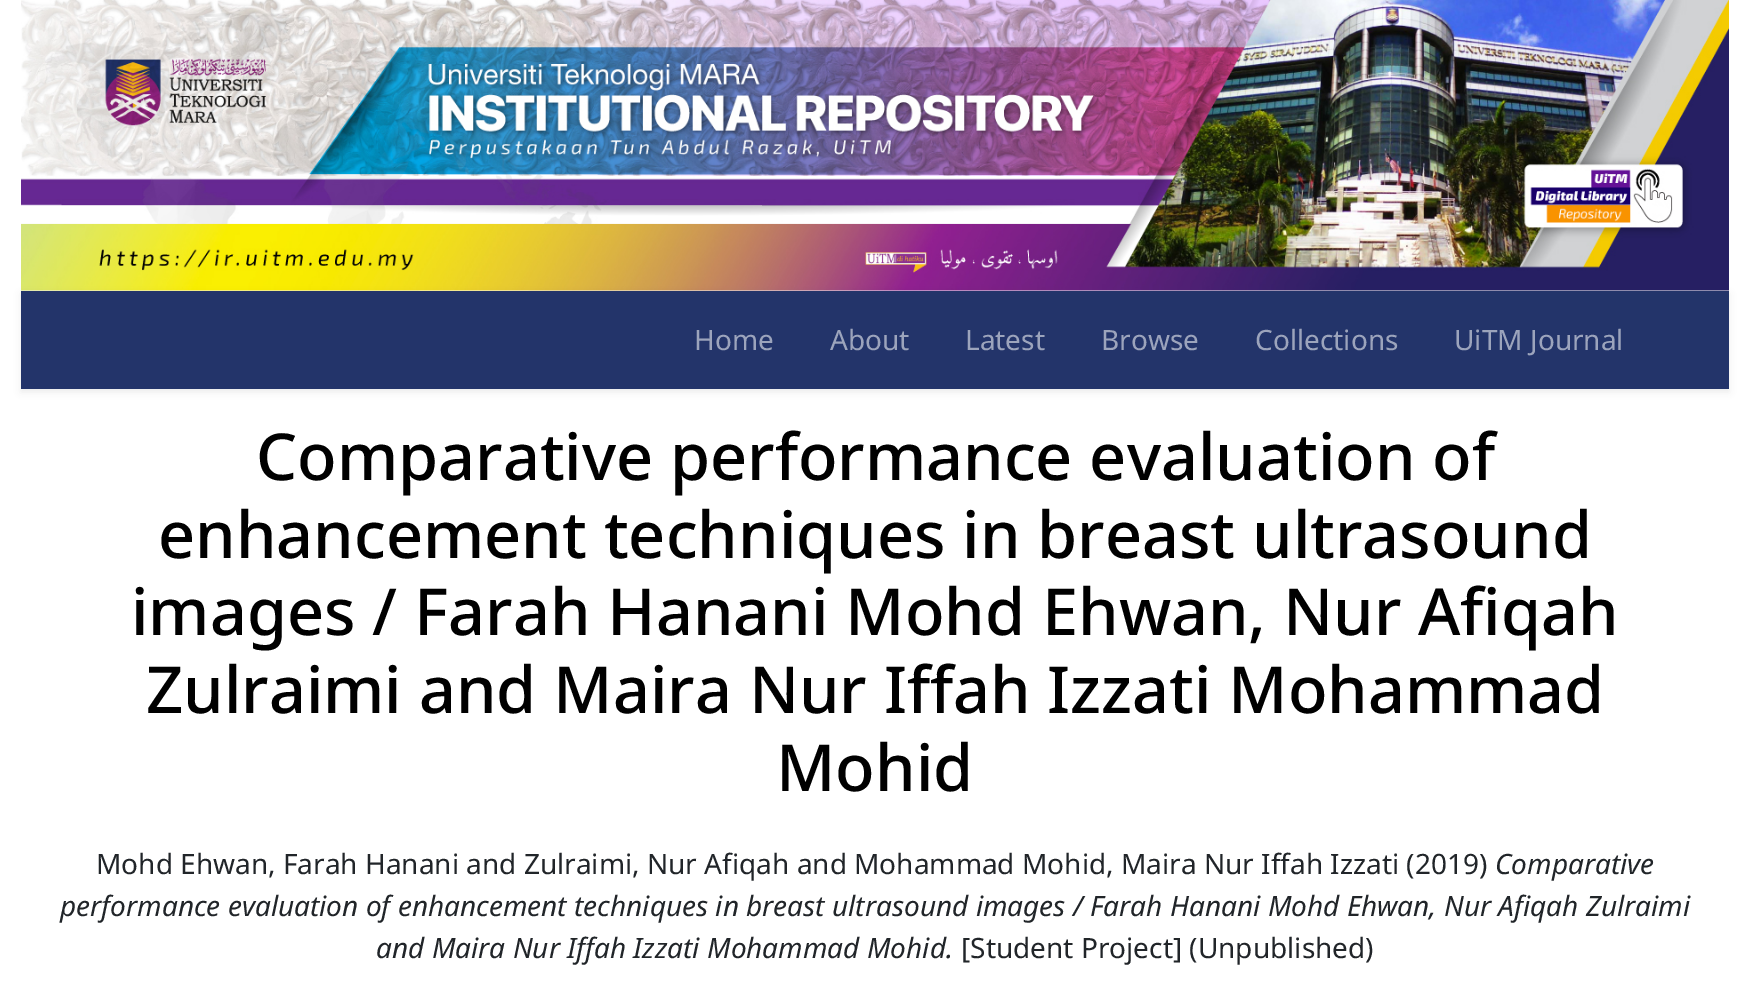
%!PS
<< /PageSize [1749 996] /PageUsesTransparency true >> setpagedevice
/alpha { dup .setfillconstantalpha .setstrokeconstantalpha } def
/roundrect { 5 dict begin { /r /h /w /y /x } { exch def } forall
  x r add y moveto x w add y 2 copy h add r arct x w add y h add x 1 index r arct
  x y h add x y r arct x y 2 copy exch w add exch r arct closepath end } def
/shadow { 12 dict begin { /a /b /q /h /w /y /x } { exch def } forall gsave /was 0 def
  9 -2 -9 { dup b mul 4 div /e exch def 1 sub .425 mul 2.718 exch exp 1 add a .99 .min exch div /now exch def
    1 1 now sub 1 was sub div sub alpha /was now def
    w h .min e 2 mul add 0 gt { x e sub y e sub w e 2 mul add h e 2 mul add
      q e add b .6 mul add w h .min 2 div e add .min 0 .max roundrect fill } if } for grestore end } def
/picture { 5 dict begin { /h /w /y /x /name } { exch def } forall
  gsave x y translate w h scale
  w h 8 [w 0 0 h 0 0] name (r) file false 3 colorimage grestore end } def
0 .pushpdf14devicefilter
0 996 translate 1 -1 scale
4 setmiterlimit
1 setgray
0 0 1749 996 rectfill
(img2.rgb) 21 290 988 1 picture
(img1.rgb) 21 0 1708 291 picture
0 setgray
21 294 1708 98 0 3.5 0.07 shadow
0.137 0.204 0.416 setrgbcolor
21 291 1708 98 rectfill
/NotoSans-Regular [28 0 0 -28 0 0] selectfont
0.612 0.643 0.737 setrgbcolor
694 350 moveto (Home) show
830 350 moveto (About) show
965 350 moveto (Latest) show
1101 350 moveto (Browse) show
1255 350 moveto (Collections) show
1454 350 moveto (UiTM Journal) show
/NotoSans-Medium [64.75 0 0 -64.75 0 0] selectfont
0 setgray
256 480 moveto (Comparative performance evaluation of) show
158 558 moveto (enhancement techniques in breast ultrasound) show
131 635 moveto (images / Farah Hanani Mohd Ehwan, Nur Afiqah) show
146 713 moveto (Zulraimi and Maira Nur Iffah Izzati Mohammad) show
776 791 moveto (Mohid) show
/NotoSans-Regular [28 0 0 -28 0 0] selectfont
0.129 0.145 0.161 setrgbcolor
96 874 moveto (Mohd Ehwan, Farah Hanani and Zulraimi, Nur Afiqah and Mohammad Mohid, Maira Nur Iffah Izzati \(2019\)) show
/NotoSans-Italic [28 0 0 -28 0 0] selectfont
1495 874 moveto (Comparative) show
60 916 moveto (performance evaluation of enhancement techniques in breast ultrasound images / Farah Hanani Mohd Ehwan, Nur Afiqah Zulraimi) show
376 958 moveto (and Maira Nur Iffah Izzati Mohammad Mohid.) show
/NotoSans-Regular [28 0 0 -28 0 0] selectfont
961 958 moveto ([Student Project] \(Unpublished\)) show
.poppdf14devicefilter showpage
